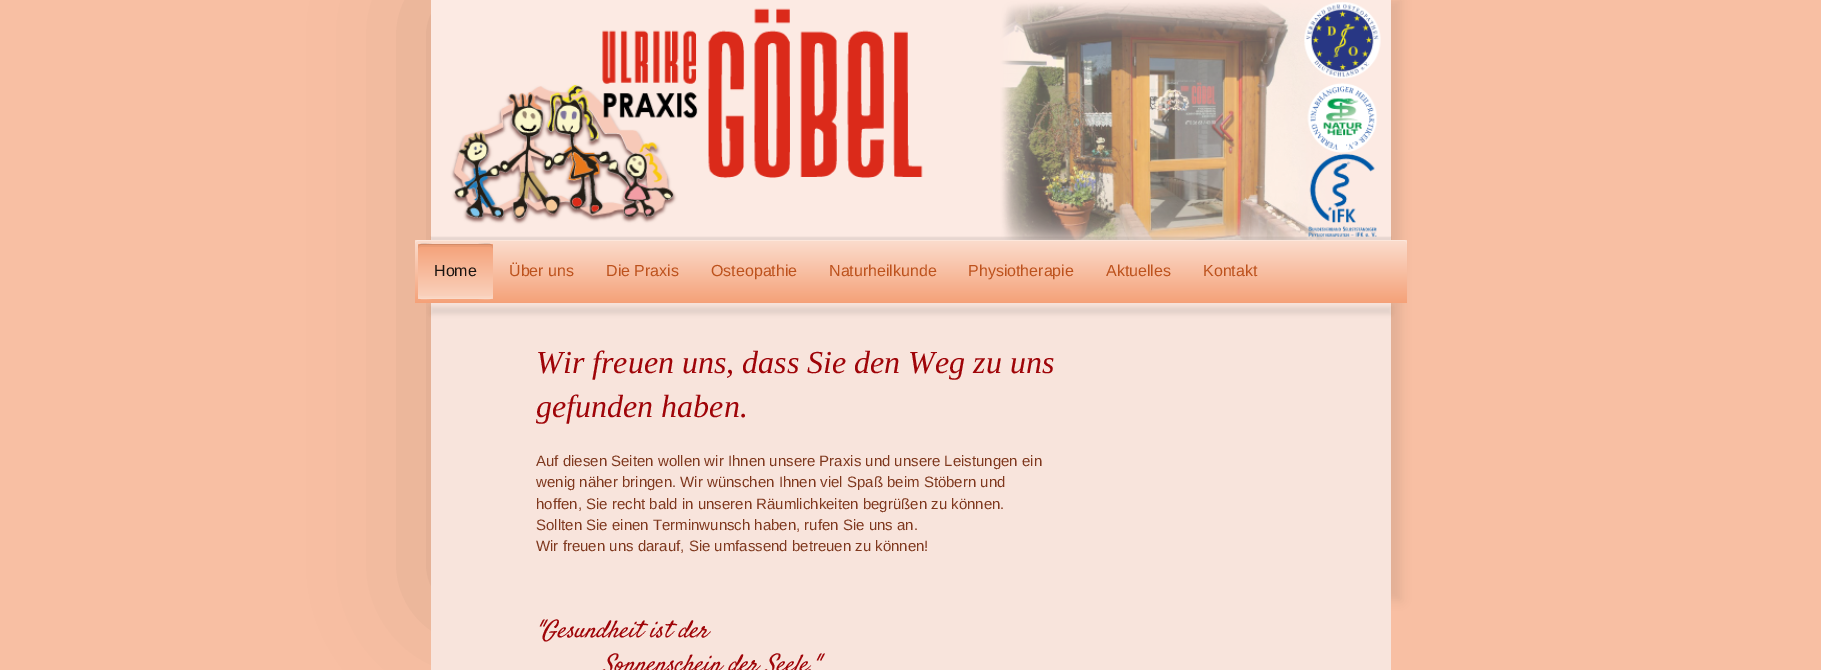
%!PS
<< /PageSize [1821 670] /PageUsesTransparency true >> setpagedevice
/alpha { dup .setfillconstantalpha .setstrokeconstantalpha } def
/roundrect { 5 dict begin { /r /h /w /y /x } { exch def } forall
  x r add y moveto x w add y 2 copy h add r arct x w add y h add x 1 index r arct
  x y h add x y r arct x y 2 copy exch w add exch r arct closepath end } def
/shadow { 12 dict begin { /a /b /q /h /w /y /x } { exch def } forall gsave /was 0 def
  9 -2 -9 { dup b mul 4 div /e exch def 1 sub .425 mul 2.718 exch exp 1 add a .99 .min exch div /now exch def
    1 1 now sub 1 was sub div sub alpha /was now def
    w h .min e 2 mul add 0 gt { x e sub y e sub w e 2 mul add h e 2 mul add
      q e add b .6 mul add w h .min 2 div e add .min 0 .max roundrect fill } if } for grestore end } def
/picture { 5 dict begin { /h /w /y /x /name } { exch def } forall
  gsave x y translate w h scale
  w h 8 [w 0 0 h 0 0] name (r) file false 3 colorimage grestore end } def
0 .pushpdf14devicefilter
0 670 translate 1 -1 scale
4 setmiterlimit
0.973 0.749 0.639 setrgbcolor
0 0 1821 670 rectfill
0 setgray
441 0 100 600 0 60 0.15 shadow
1301 0 100 600 0 5 0.08 shadow
(img1.rgb) 431 0 960 240 picture
431 237 960 31 0 0.5 0.08 shadow
gsave 415 240 992 63 3 roundrect clip newpath
<< /ShadingType 2 /ColorSpace /DeviceRGB /Coords [415 240 415 303] /Extend [true true] /Function << /FunctionType 2 /Domain [0 1] /C0 [0.984 0.867 0.808] /C1 [0.961 0.631 0.471] /N 1 >> >> shfill grestore
0.3 alpha
1 setgray
newpath 418 241 moveto 1404 241 lineto 1406 241 1407 242 1407 244 curveto 1407 242 1406 240 1404 240 curveto 418 240 lineto 416 240 415 242 415 244 curveto 415 242 416 241 418 241 curveto closepath fill
1 alpha
gsave 418 244 75 55 3 roundrect clip newpath
<< /ShadingType 2 /ColorSpace /DeviceRGB /Coords [418 299 418 244] /Extend [true true] /Function << /FunctionType 2 /Domain [0 1] /C0 [0.98 0.827 0.749] /C1 [0.961 0.631 0.471] /N 1 >> >> shfill grestore
0.1 alpha
0 setgray
newpath 421 245 moveto 490 245 lineto 492 245 493 246 493 248 curveto 493 241 483 244 478 244 curveto 432 244 lineto 428 244 418 241 418 248 curveto 418 246 419 245 421 245 curveto closepath fill
0.04 alpha
newpath 421 247 moveto 490 247 lineto 492 247 493 248 493 250 curveto 493 241 488 244 478 244 curveto 432 244 lineto 423 244 418 241 418 250 curveto 418 248 419 247 421 247 curveto closepath fill
0.08 alpha
1 setgray
newpath 418 293 moveto 418 302 423 299 432 299 curveto 478 299 lineto 488 299 493 302 493 293 curveto 493 295 492 296 490 296 curveto 421 296 lineto 419 296 418 295 418 293 curveto closepath fill
0.1 alpha
newpath 418 295 moveto 418 302 428 299 432 299 curveto 478 299 lineto 483 299 493 302 493 295 curveto 493 297 492 298 490 298 curveto 421 298 lineto 419 298 418 297 418 295 curveto closepath fill
/LiberationSans-Regular [16 0 0 -16 0 0] selectfont
1 alpha
0.106 0.078 0.063 setrgbcolor
434 276 moveto (Home) show
0.741 0.322 0.114 setrgbcolor
509 276 moveto (Über uns) show
606 276 moveto (Die Praxis) show
711 276 moveto (Osteopathie) show
829 276 moveto (Naturheilkunde) show
968 276 moveto (Physiotherapie) show
1106 276 moveto (Aktuelles) show
1203 276 moveto (Kontakt) show
0.973 0.894 0.863 setrgbcolor
431 303 960 367 rectfill
0 setgray
431 307 960 7 0 2 0.08 shadow
/LiberationSerif-Italic [32 0 0 -32 0 0] selectfont
0.624 0.016 0.031 setrgbcolor
536 373 moveto (Wir freuen uns, dass Sie den Weg zu uns) show
536 417 moveto (gefunden haben.) show
/LiberationSans-Regular [15 0 0 -15 0 0] selectfont
0.498 0.22 0.118 setrgbcolor
536 466 moveto (Auf diesen Seiten wollen wir Ihnen unsere Praxis und unsere Leistungen ein) show
536 487 moveto (wenig näher bringen. Wir wünschen Ihnen viel Spaß beim Stöbern und) show
536 509 moveto (hoffen, Sie recht bald in unseren Räumlichkeiten begrüßen zu können.) show
536 530 moveto (Sollten Sie einen Terminwunsch haben, rufen Sie uns an.) show
536 551 moveto (Wir freuen uns darauf, Sie umfassend betreuen zu können!) show
/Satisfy-Italic [24 0 0 -24 0 0] selectfont
0.624 0.016 0.031 setrgbcolor
536 637 moveto ("Gesundheit ist der) show
603 671 moveto (Sonnenschein der Seele.") show
.poppdf14devicefilter showpage
